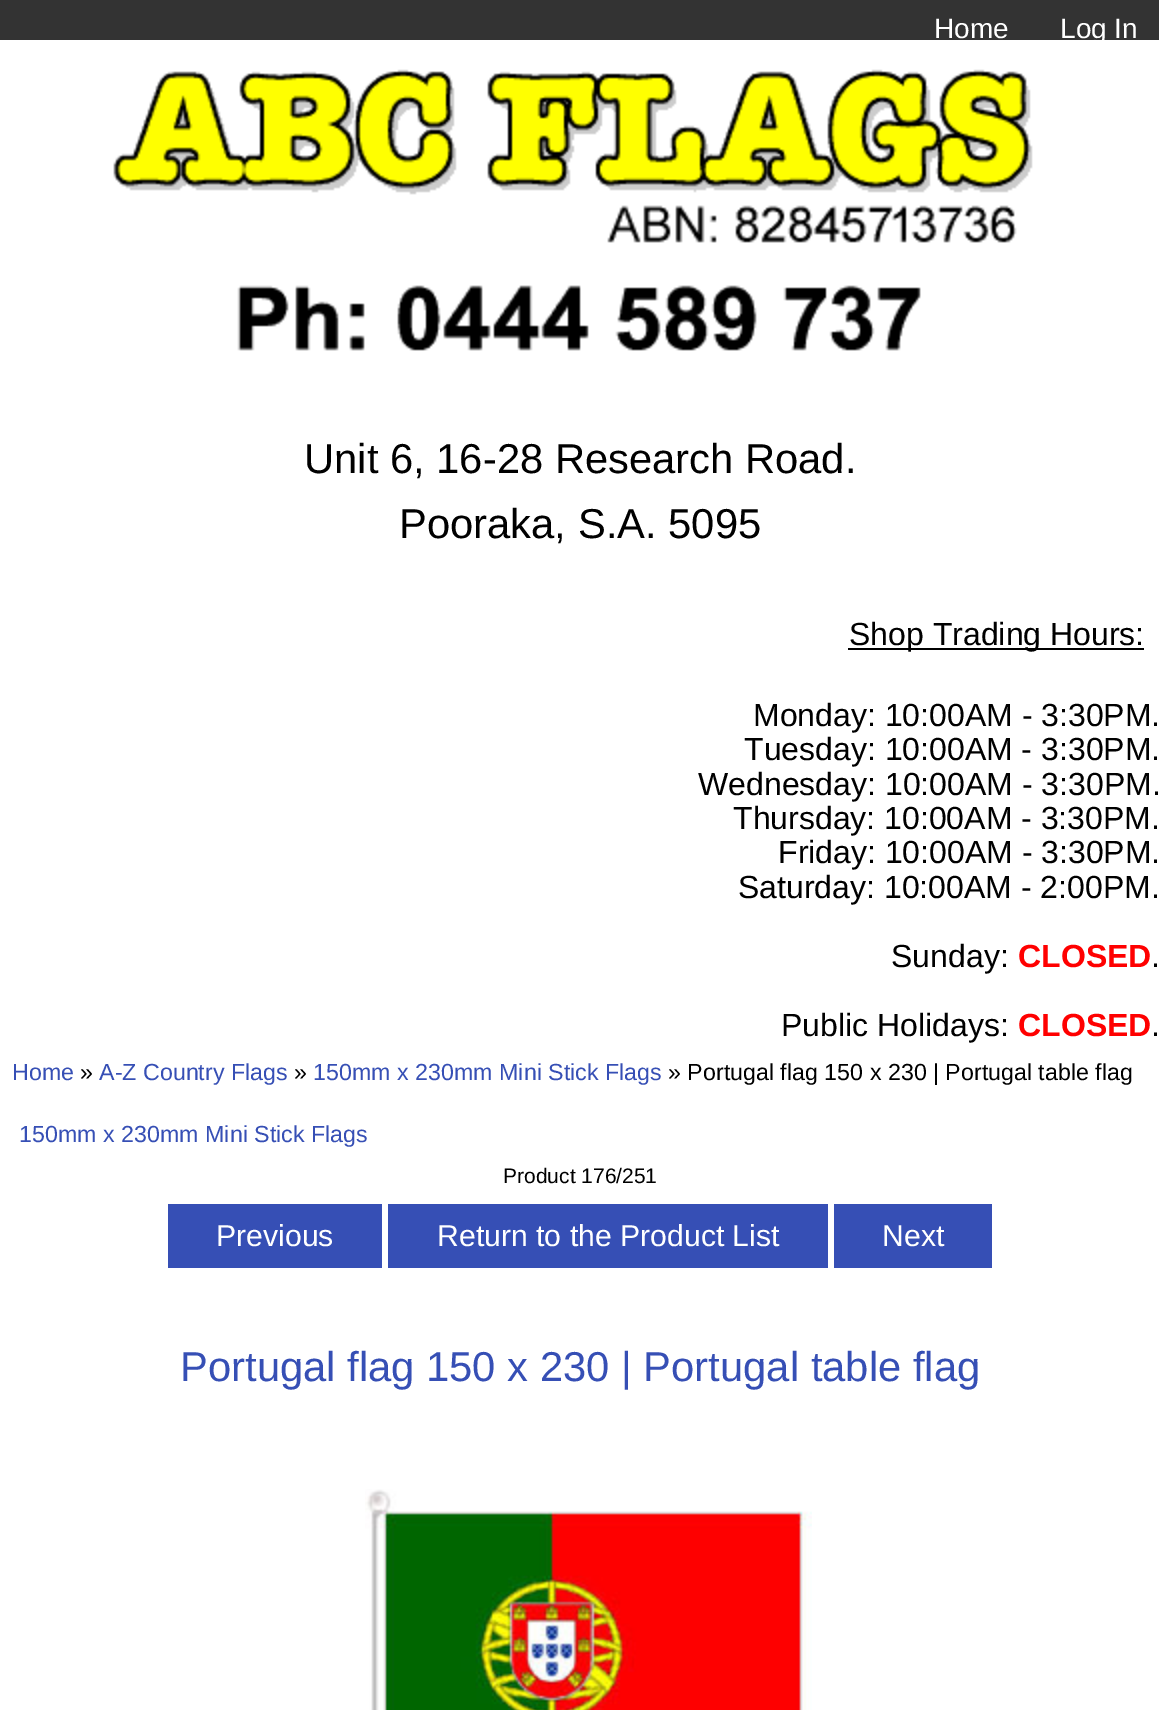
%!PS
<< /PageSize [1159 1710] >> setpagedevice
/picture { 5 dict begin { /h /w /y /x /name } { exch def } forall
  gsave x y translate w h scale
  w h 8 [w 0 0 h 0 0] name (r) file false 3 colorimage grestore end } def
0 1710 translate 1 -1 scale
4 setmiterlimit
1 setgray
0 0 1159 1710 rectfill
0.2 setgray
0 0 1159 40 rectfill
/LiberationSans-Regular [28 0 0 -28 0 0] selectfont
1 setgray
934 38 moveto (Home) show
1060 38 moveto (Log In) show
(img1.rgb) 113 69 920 282 picture
/LiberationSans-Regular [41.75 0 0 -41.75 0 0] selectfont
0 setgray
304 473 moveto (Unit 6, 16-28 Research Road.) show
399 538 moveto (Pooraka, S.A. 5095) show
848 648 296 2 rectfill
/LiberationSans-Regular [32 0 0 -32 0 0] selectfont
849 645 moveto (Shop Trading Hours:) show
753 726 moveto (Monday: 10:00AM - 3:30PM.) show
744 760 moveto (Tuesday: 10:00AM - 3:30PM.) show
698 795 moveto (Wednesday: 10:00AM - 3:30PM.) show
733 829 moveto (Thursday: 10:00AM - 3:30PM.) show
778 863 moveto (Friday: 10:00AM - 3:30PM.) show
738 898 moveto (Saturday: 10:00AM - 2:00PM.) show
891 967 moveto (Sunday:) show
/LiberationSans-Bold [32 0 0 -32 0 0] selectfont
1 0 0 setrgbcolor
1018 967 moveto (CLOSED) show
/LiberationSans-Regular [32 0 0 -32 0 0] selectfont
0 setgray
1151 967 moveto (.) show
781 1036 moveto (Public Holidays:) show
/LiberationSans-Bold [32 0 0 -32 0 0] selectfont
1 0 0 setrgbcolor
1018 1036 moveto (CLOSED) show
/LiberationSans-Regular [32 0 0 -32 0 0] selectfont
0 setgray
1151 1036 moveto (.) show
/LiberationSans-Regular [23.25 0 0 -23.25 0 0] selectfont
0.212 0.31 0.71 setrgbcolor
12 1080 moveto (Home) show
0 setgray
80 1080 moveto (») show
0.212 0.31 0.71 setrgbcolor
99 1080 moveto (A-Z Country Flags) show
0 setgray
294 1080 moveto (») show
0.212 0.31 0.71 setrgbcolor
313 1080 moveto (150mm x 230mm Mini Stick Flags) show
0 setgray
668 1080 moveto (» Portugal flag 150 x 230 | Portugal table flag) show
0.212 0.31 0.71 setrgbcolor
19 1142 moveto (150mm x 230mm Mini Stick Flags) show
/LiberationSans-Regular [21 0 0 -21 0 0] selectfont
0 setgray
503 1183 moveto (Product 176/251) show
0.212 0.31 0.71 setrgbcolor
168 1204 214 64 rectfill
/LiberationSans-Regular [30.2 0 0 -30.2 0 0] selectfont
1 setgray
216 1246 moveto (Previous) show
0.212 0.31 0.71 setrgbcolor
388 1204 440 64 rectfill
1 setgray
437 1246 moveto (Return to the Product List) show
0.212 0.31 0.71 setrgbcolor
834 1204 158 64 rectfill
1 setgray
882 1246 moveto (Next) show
/LiberationSans-Regular [41.75 0 0 -41.75 0 0] selectfont
0.212 0.31 0.71 setrgbcolor
180 1381 moveto (Portugal flag 150 x 230 | Portugal table flag) show
(img2.rgb) 365 1489 447 221 picture
showpage
